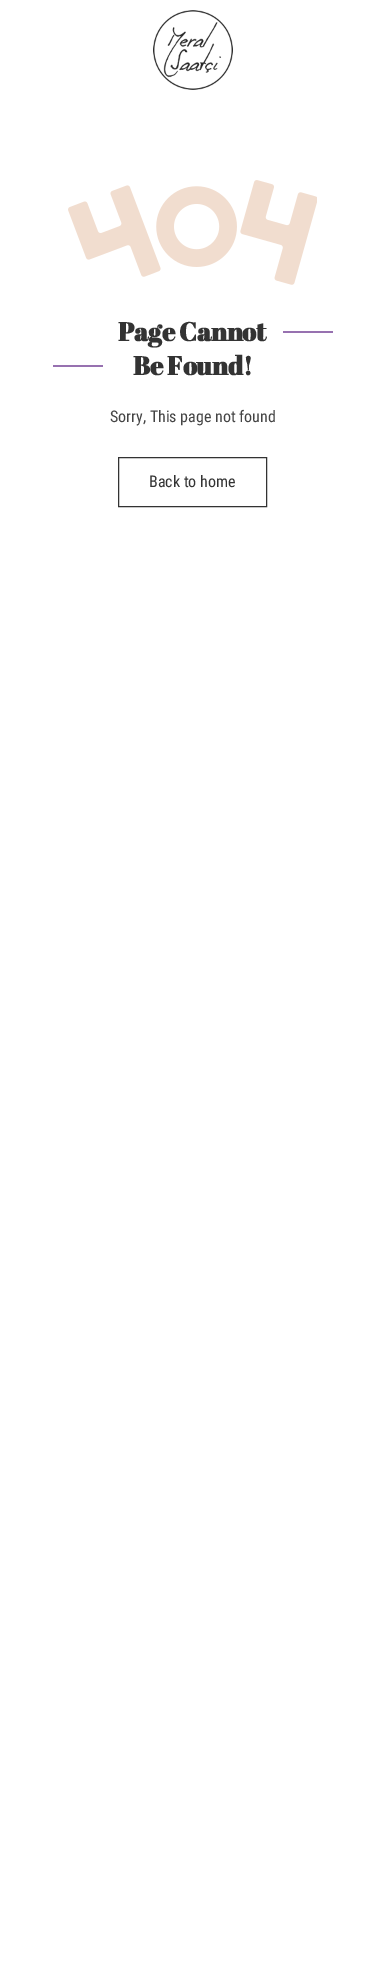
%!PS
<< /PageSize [385 1969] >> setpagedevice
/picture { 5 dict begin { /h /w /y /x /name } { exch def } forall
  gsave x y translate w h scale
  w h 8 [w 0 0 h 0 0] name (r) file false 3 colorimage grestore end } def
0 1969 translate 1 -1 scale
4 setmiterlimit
1 setgray
0 0 385 1969 rectfill
(img1.rgb) 153 10 80 80 picture
(img2.rgb) 68 180 249 105 picture
/AbrilFatface-Bold [26 0 0 -26 0 0] selectfont
0.2 setgray
118 341 moveto -0.25 0 (Page Cannot) ashow
0.592 0.443 0.69 setrgbcolor
283 331 50 2 rectfill
53 365 50 2 rectfill
0.2 setgray
133 375 moveto -0.25 0 (Be Found!) ashow
/RobotoCondensed-Regular [16 0 0 -16 0 0] selectfont
0.267 setgray
110 422 moveto (Sorry, This page not found) show
0.2 setgray
118.5 457.5 148 49 rectstroke
149 487 moveto (Back to home) show
showpage
